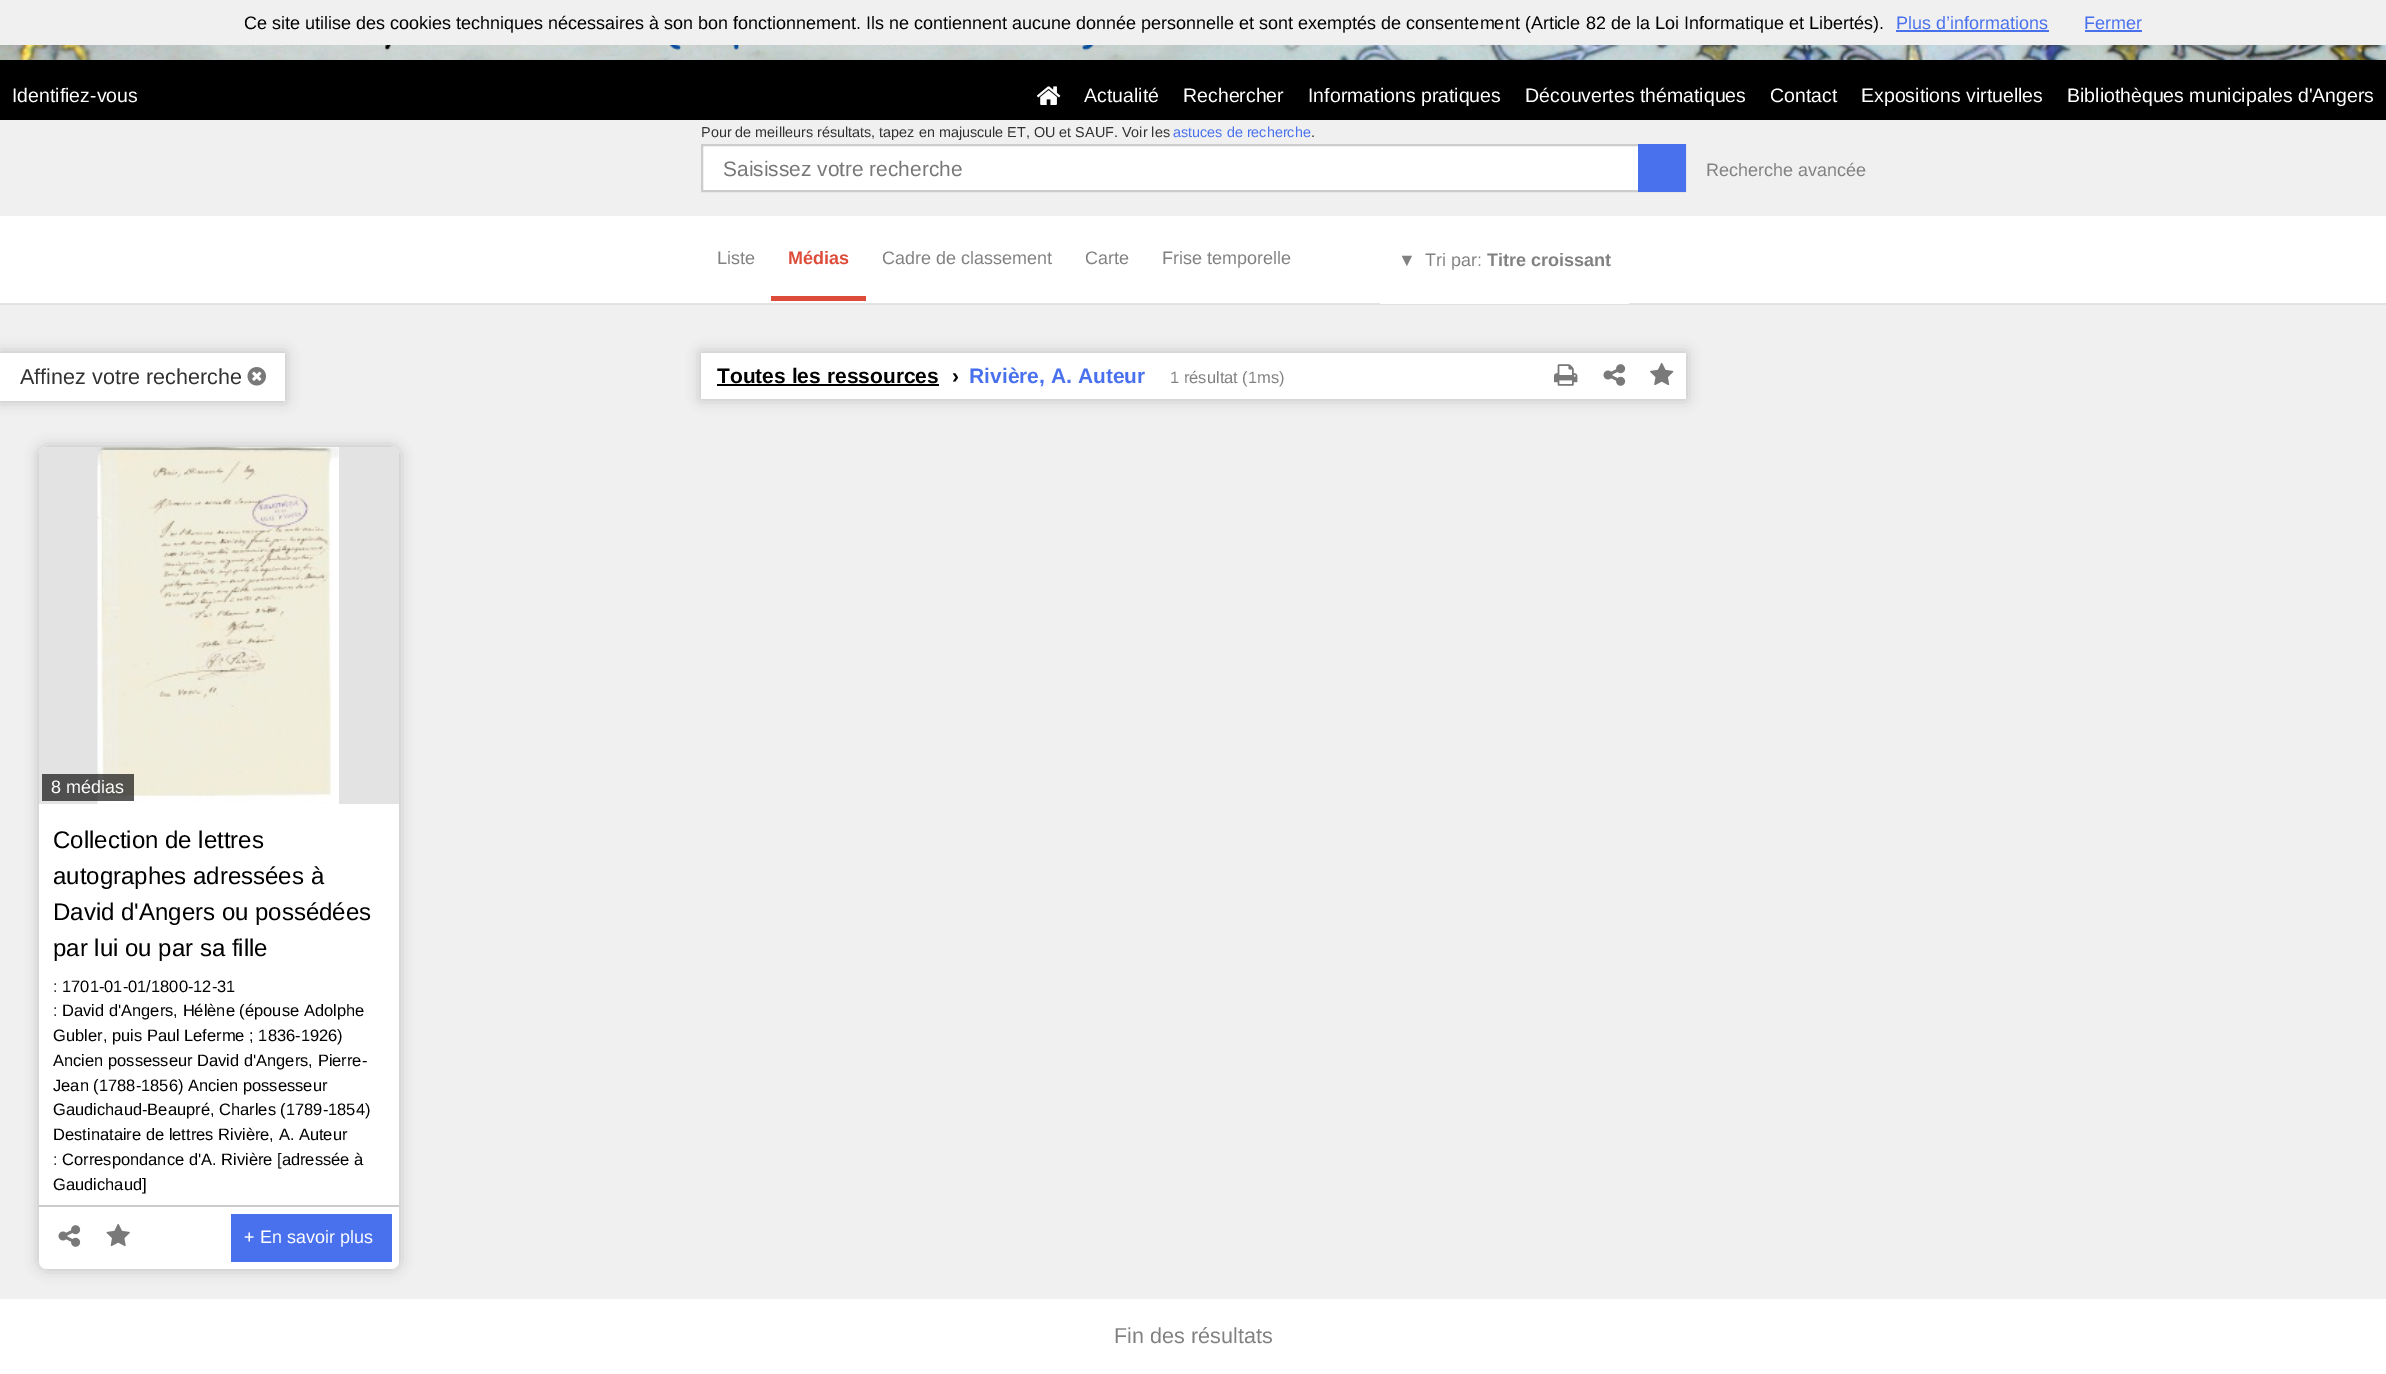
%!PS
<< /PageSize [2386 1374] /PageUsesTransparency true >> setpagedevice
/alpha { dup .setfillconstantalpha .setstrokeconstantalpha } def
/roundrect { 5 dict begin { /r /h /w /y /x } { exch def } forall
  x r add y moveto x w add y 2 copy h add r arct x w add y h add x 1 index r arct
  x y h add x y r arct x y 2 copy exch w add exch r arct closepath end } def
/shadow { 12 dict begin { /a /b /q /h /w /y /x } { exch def } forall gsave /was 0 def
  9 -2 -9 { dup b mul 4 div /e exch def 1 sub .425 mul 2.718 exch exp 1 add a .99 .min exch div /now exch def
    1 1 now sub 1 was sub div sub alpha /was now def
    w h .min e 2 mul add 0 gt { x e sub y e sub w e 2 mul add h e 2 mul add
      q e add b .6 mul add w h .min 2 div e add .min 0 .max roundrect fill } if } for grestore end } def
/picture { 5 dict begin { /h /w /y /x /name } { exch def } forall
  gsave x y translate w h scale
  w h 8 [w 0 0 h 0 0] name (r) file false 3 colorimage grestore end } def
0 .pushpdf14devicefilter
0 1374 translate 1 -1 scale
4 setmiterlimit
0.941 setgray
0 0 2386 1374 rectfill
/LiberationSans-Regular [18 0 0 -18 0 0] selectfont
0 setgray
244 29 moveto (Ce site utilise des cookies techniques nécessaires à son bon fonctionnement. Ils ne contiennent aucune donnée personnelle et sont exemptés de consentement \(Article 82 de la Loi Informatique et Libertés\).) show
0.29 0.443 0.929 setrgbcolor
1896 29 moveto (Plus d’informations) show
0.286 0.439 0.925 setrgbcolor
1896 30 153 2 rectfill
0.29 0.443 0.929 setrgbcolor
2084 29 moveto (Fermer) show
0.286 0.439 0.925 setrgbcolor
2085 30 57 2 rectfill
0 setgray
0 60 2386 60 rectfill
(img1.rgb) 0 45 2386 15 picture
/LiberationSans-Regular [19.5 0 0 -19.5 0 0] selectfont
1 setgray
12 102 moveto (Identifiez-vous) show
(img2.rgb) 1036 86 25 19 picture
1084 102 moveto (Actualité) show
1183 102 moveto (Rechercher) show
1308 102 moveto (Informations pratiques) show
1525 102 moveto (Découvertes thématiques) show
1770 102 moveto (Contact) show
1861 102 moveto (Expositions virtuelles) show
2067 102 moveto (Bibliothèques municipales d'Angers) show
/LiberationSans-Regular [14.4 0 0 -14.4 0 0] selectfont
0.196 setgray
701 137 moveto (Pour de meilleurs résultats, tapez en majuscule ET, OU et SAUF. Voir les) show
0.29 0.443 0.929 setrgbcolor
1173 137 moveto (astuces de recherche) show
0.196 setgray
1311 137 moveto (.) show
1 setgray
703 146 935 44 rectfill
0.8 setgray
2 setlinewidth
702 145 983 46 rectstroke
/LiberationSans-Regular [20.9 0 0 -20.9 0 0] selectfont
0.467 setgray
723 176 moveto (Saisissez votre recherche) show
0.29 0.443 0.929 setrgbcolor
1638 144 48 48 rectfill
/LiberationSans-Regular [18 0 0 -18 0 0] selectfont
0.506 setgray
1706 176 moveto (Recherche avancée) show
1 setgray
0 216 2386 87 rectfill
0.89 setgray
0 303 2386 2 rectfill
0.506 setgray
717 264 moveto (Liste) show
0.867 0.294 0.224 setrgbcolor
771 296 95 5 rectfill
/LiberationSans-Bold [18 0 0 -18 0 0] selectfont
788 264 moveto (Médias) show
/LiberationSans-Regular [18 0 0 -18 0 0] selectfont
0.506 setgray
882 264 moveto (Cadre de classement) show
1085 264 moveto (Carte) show
1162 264 moveto (Frise temporelle) show
1 setgray
1380 303 249 1 rectfill
0.506 setgray
1398 266 moveto (▼) show
1425 266 moveto (Tri par:) show
/LiberationSans-Bold [18 0 0 -18 0 0] selectfont
1487 266 moveto (Titre croissant) show
0.733 setgray
0 353 285 48 0 7 1 shadow
1 setgray
0 353 285 48 rectfill
/LiberationSans-Regular [21.6 0 0 -21.6 0 0] selectfont
0.196 setgray
20 384 moveto (Affinez votre recherche) show
(img3.rgb) 247 367 19 19 picture
0.733 setgray
701 353 985 46 0 7 1 shadow
1 setgray
701 353 985 46 rectfill
/LiberationSans-Bold [21 0 0 -21 0 0] selectfont
0 setgray
717 383 moveto (Toutes les ressources) show
717 384 222 2 rectfill
952 383 moveto (›) show
0.29 0.443 0.929 setrgbcolor
969 383 moveto (Rivière, A. Auteur) show
/LiberationSans-Regular [16.5 0 0 -16.5 0 0] selectfont
0.506 setgray
1170 383 moveto (1 résultat \(1ms\)) show
(img4.rgb) 1554 364 24 22 picture
(img5.rgb) 1603 364 23 22 picture
(img6.rgb) 1650 362 24 24 picture
0.733 setgray
39 447 360 822 8 7 1 shadow
1 setgray
39 447 360 822 8 roundrect fill
0.89 setgray
newpath 47 447 moveto 391 447 lineto 395.5 447 399 450.5 399 455 curveto 399 804 lineto 39 804 lineto 39 455 lineto 39 450.5 42.5 447 47 447 curveto closepath fill
(img7.rgb) 97 447 242 357 picture
0.65 alpha
0 setgray
42 774 92 27 rectfill
/LiberationSans-Regular [18 0 0 -18 0 0] selectfont
1 alpha
1 setgray
51 793 moveto (8 médias) show
/LiberationSans-Regular [24 0 0 -24 0 0] selectfont
0 setgray
53 848 moveto (Collection de lettres) show
53 884 moveto (autographes adressées à) show
53 920 moveto (David d'Angers ou possédées) show
53 956 moveto (par lui ou par sa fille) show
/LiberationSans-Regular [16.5 0 0 -16.5 0 0] selectfont
0.196 setgray
53 992 moveto (:) show
0 setgray
62 992 moveto (1701-01-01/1800-12-31) show
0.196 setgray
53 1016 moveto (:) show
0 setgray
62 1016 moveto (David d'Angers, Hélène \(épouse Adolphe) show
53 1041 moveto (Gubler, puis Paul Leferme ; 1836-1926\)) show
53 1066 moveto (Ancien possesseur David d'Angers, Pierre-) show
53 1091 moveto (Jean \(1788-1856\) Ancien possesseur) show
53 1115 moveto (Gaudichaud-Beaupré, Charles \(1789-1854\)) show
53 1140 moveto (Destinataire de lettres Rivière, A. Auteur) show
0.196 setgray
53 1165 moveto (:) show
0 setgray
62 1165 moveto (Correspondance d'A. Rivière [adressée à) show
53 1190 moveto (Gaudichaud]) show
0.8 setgray
39 1205 360 2 rectfill
(img5.rgb) 58 1225 23 22 picture
(img8.rgb) 106 1223 24 24 picture
0.29 0.443 0.929 setrgbcolor
231 1214 161 48 rectfill
/LiberationSans-Regular [18 0 0 -18 0 0] selectfont
1 setgray
244 1243 moveto (+ En savoir plus) show
0 1299 2386 75 rectfill
/LiberationSans-Regular [21.6 0 0 -21.6 0 0] selectfont
0.506 setgray
1114 1343 moveto (Fin des résultats) show
.poppdf14devicefilter showpage
